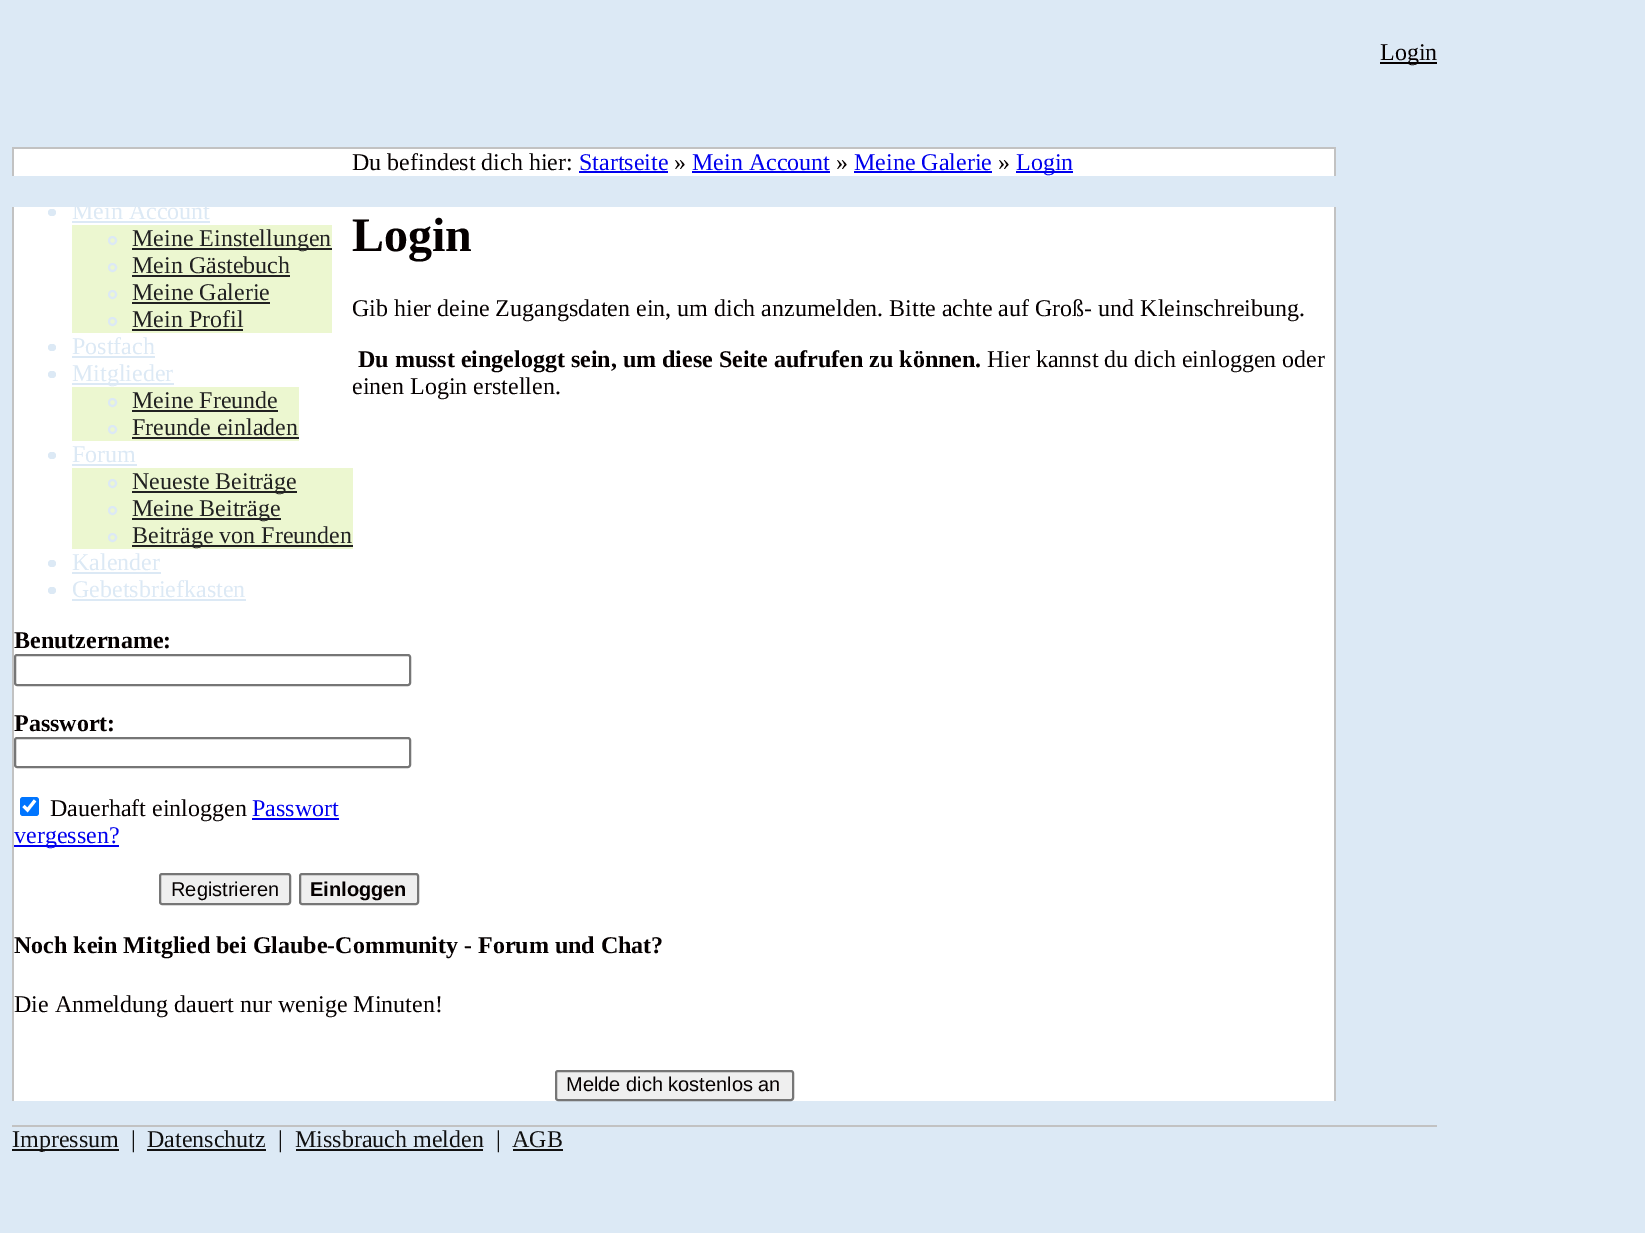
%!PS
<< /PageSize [1645 1233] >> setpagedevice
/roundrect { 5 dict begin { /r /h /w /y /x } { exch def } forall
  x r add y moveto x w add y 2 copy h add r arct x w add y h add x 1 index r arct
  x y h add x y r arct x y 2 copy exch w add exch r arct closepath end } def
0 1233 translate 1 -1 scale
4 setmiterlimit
0.863 0.914 0.961 setrgbcolor
0 0 1645 1233 rectfill
0.02 0 0 setrgbcolor
1380 62 57 2 rectfill
/LiberationSerif-Regular [24 0 0 -24 0 0] selectfont
1380 60 moveto (Login) show
1 setgray
14 149 1320 27 rectfill
0.761 setgray
12 147 1323 2 rectfill
1334 147 2 29 rectfill
12 147 2 29 rectfill
0.02 0 0 setrgbcolor
352 170 moveto (Du befindest dich hier:) show
0 0 0.933 setrgbcolor
579 170 moveto (Startseite) show
579 171 89 2 rectfill
0.02 0 0 setrgbcolor
674 170 moveto (») show
0 0 0.933 setrgbcolor
692 170 moveto (Mein Account) show
692 171 138 2 rectfill
0.02 0 0 setrgbcolor
836 170 moveto (») show
0 0 0.933 setrgbcolor
854 170 moveto (Meine Galerie) show
854 171 138 2 rectfill
0.02 0 0 setrgbcolor
998 170 moveto (») show
0 0 0.933 setrgbcolor
1016 171 57 2 rectfill
1016 170 moveto (Login) show
1 setgray
14 207 1320 894 rectfill
0.863 0.914 0.961 setrgbcolor
48 209 8 7 3.5 roundrect fill
72 219 moveto (Mein Account) show
72 221 138 2 rectfill
0.925 0.969 0.816 setrgbcolor
72 225 260 108 rectfill
0.863 0.914 0.961 setrgbcolor
2 setlinewidth
newpath 112.5 240.5 3.5 0 360 arc closepath stroke
0.129 setgray
132 248 200 2 rectfill
132 246 moveto (Meine Einstellungen) show
0.863 0.914 0.961 setrgbcolor
newpath 112.5 267.5 3.5 0 360 arc closepath stroke
0.129 setgray
132 273 moveto (Mein Gästebuch) show
132 275 158 2 rectfill
0.863 0.914 0.961 setrgbcolor
newpath 112.5 294.5 3.5 0 360 arc closepath stroke
0.129 setgray
132 300 moveto (Meine Galerie) show
132 302 138 2 rectfill
0.863 0.914 0.961 setrgbcolor
newpath 112.5 321.5 3.5 0 360 arc closepath stroke
0.129 setgray
132 327 moveto (Mein Profil) show
132 329 111 2 rectfill
0.863 0.914 0.961 setrgbcolor
48 344 8 7 3.5 roundrect fill
72 354 moveto (Postfach) show
72 356 83 2 rectfill
48 371 8 7 3.5 roundrect fill
72 383 102 2 rectfill
72 381 moveto (Mitglieder) show
0.925 0.969 0.816 setrgbcolor
72 387 227 54 rectfill
0.863 0.914 0.961 setrgbcolor
newpath 112.5 402.5 3.5 0 360 arc closepath stroke
0.129 setgray
132 408 moveto (Meine Freunde) show
132 410 146 2 rectfill
0.863 0.914 0.961 setrgbcolor
newpath 112.5 429.5 3.5 0 360 arc closepath stroke
0.129 setgray
132 435 moveto (Freunde einladen) show
132 437 167 2 rectfill
0.863 0.914 0.961 setrgbcolor
48 452 8 7 3.5 roundrect fill
72 462 moveto (Forum) show
72 464 65 2 rectfill
0.925 0.969 0.816 setrgbcolor
72 468 281 81 rectfill
0.863 0.914 0.961 setrgbcolor
newpath 112.5 483.5 3.5 0 360 arc closepath stroke
0.129 setgray
132 491 165 2 rectfill
132 489 moveto (Neueste Beiträge) show
0.863 0.914 0.961 setrgbcolor
newpath 112.5 510.5 3.5 0 360 arc closepath stroke
0.129 setgray
132 518 149 2 rectfill
132 516 moveto (Meine Beiträge) show
0.863 0.914 0.961 setrgbcolor
newpath 112.5 537.5 3.5 0 360 arc closepath stroke
0.129 setgray
132 545 221 2 rectfill
132 543 moveto (Beiträge von Freunden) show
0.863 0.914 0.961 setrgbcolor
48 560 8 7 3.5 roundrect fill
72 570 moveto (Kalender) show
72 572 89 2 rectfill
48 587 8 7 3.5 roundrect fill
72 597 moveto (Gebetsbriefkasten) show
72 599 174 2 rectfill
0.761 setgray
1334 207 2 894 rectfill
12 207 2 894 rectfill
/LiberationSerif-Bold [48 0 0 -48 0 0] selectfont
0.02 0 0 setrgbcolor
352 251 moveto (Login) show
/LiberationSerif-Regular [24 0 0 -24 0 0] selectfont
352 316 moveto (Gib hier deine Zugangsdaten ein, um dich anzumelden. Bitte achte auf Groß- und Kleinschreibung.) show
/LiberationSerif-Bold [24 0 0 -24 0 0] selectfont
358 367 moveto (Du musst eingeloggt sein, um diese Seite aufrufen zu können.) show
/LiberationSerif-Regular [24 0 0 -24 0 0] selectfont
987 367 moveto (Hier kannst du dich einloggen oder) show
352 394 moveto (einen Login erstellen.) show
/LiberationSerif-Bold [24 0 0 -24 0 0] selectfont
14 648 moveto (Benutzername:) show
0.463 setgray
15 655 395 30 2 roundrect stroke
0.02 0 0 setrgbcolor
14 731 moveto (Passwort:) show
0.463 setgray
15 738 395 29 2 roundrect stroke
0 0.459 1 setrgbcolor
20 797 19 19 3 roundrect fill
1 setgray
3.1 setlinewidth
newpath 23.5 806 moveto 27.5 810 lineto 35 800.5 lineto stroke
/LiberationSerif-Regular [24 0 0 -24 0 0] selectfont
0.02 0 0 setrgbcolor
50 816 moveto (Dauerhaft einloggen) show
0 0 0.933 setrgbcolor
252 816 moveto (Passwort) show
252 818 87 2 rectfill
14 845 105 2 rectfill
14 843 moveto (vergessen?) show
0.937 setgray
160 874 130 30 2 roundrect gsave fill grestore
0.463 setgray
2 setlinewidth
stroke
/LiberationSans-Regular [20 0 0 -20 0 0] selectfont
0.02 0 0 setrgbcolor
171 896 moveto (Registrieren) show
0.937 setgray
300 874 118 30 2 roundrect gsave fill grestore
0.463 setgray
stroke
/LiberationSans-Bold [20 0 0 -20 0 0] selectfont
0.02 0 0 setrgbcolor
310 896 moveto (Einloggen) show
/LiberationSerif-Bold [24 0 0 -24 0 0] selectfont
14 953 moveto (Noch kein Mitglied bei Glaube-Community - Forum und Chat?) show
/LiberationSerif-Regular [24 0 0 -24 0 0] selectfont
14 1012 moveto (Die Anmeldung dauert nur wenige Minuten!) show
0.937 setgray
556 1071 237 29 2 roundrect gsave fill grestore
0.463 setgray
stroke
/LiberationSans-Regular [20 0 0 -20 0 0] selectfont
0.02 0 0 setrgbcolor
566 1091 moveto (Melde dich kostenlos an) show
0.761 setgray
12 1125 1425 2 rectfill
0.067 setgray
12 1149 107 2 rectfill
/LiberationSerif-Regular [24 0 0 -24 0 0] selectfont
12 1147 moveto (Impressum) show
131 1147 moveto (|) show
147 1147 moveto (Datenschutz) show
147 1149 119 2 rectfill
278 1147 moveto (|) show
295 1147 moveto (Missbrauch melden) show
296 1149 187 2 rectfill
496 1147 moveto (|) show
512 1147 moveto (AGB) show
513 1149 50 2 rectfill
showpage
